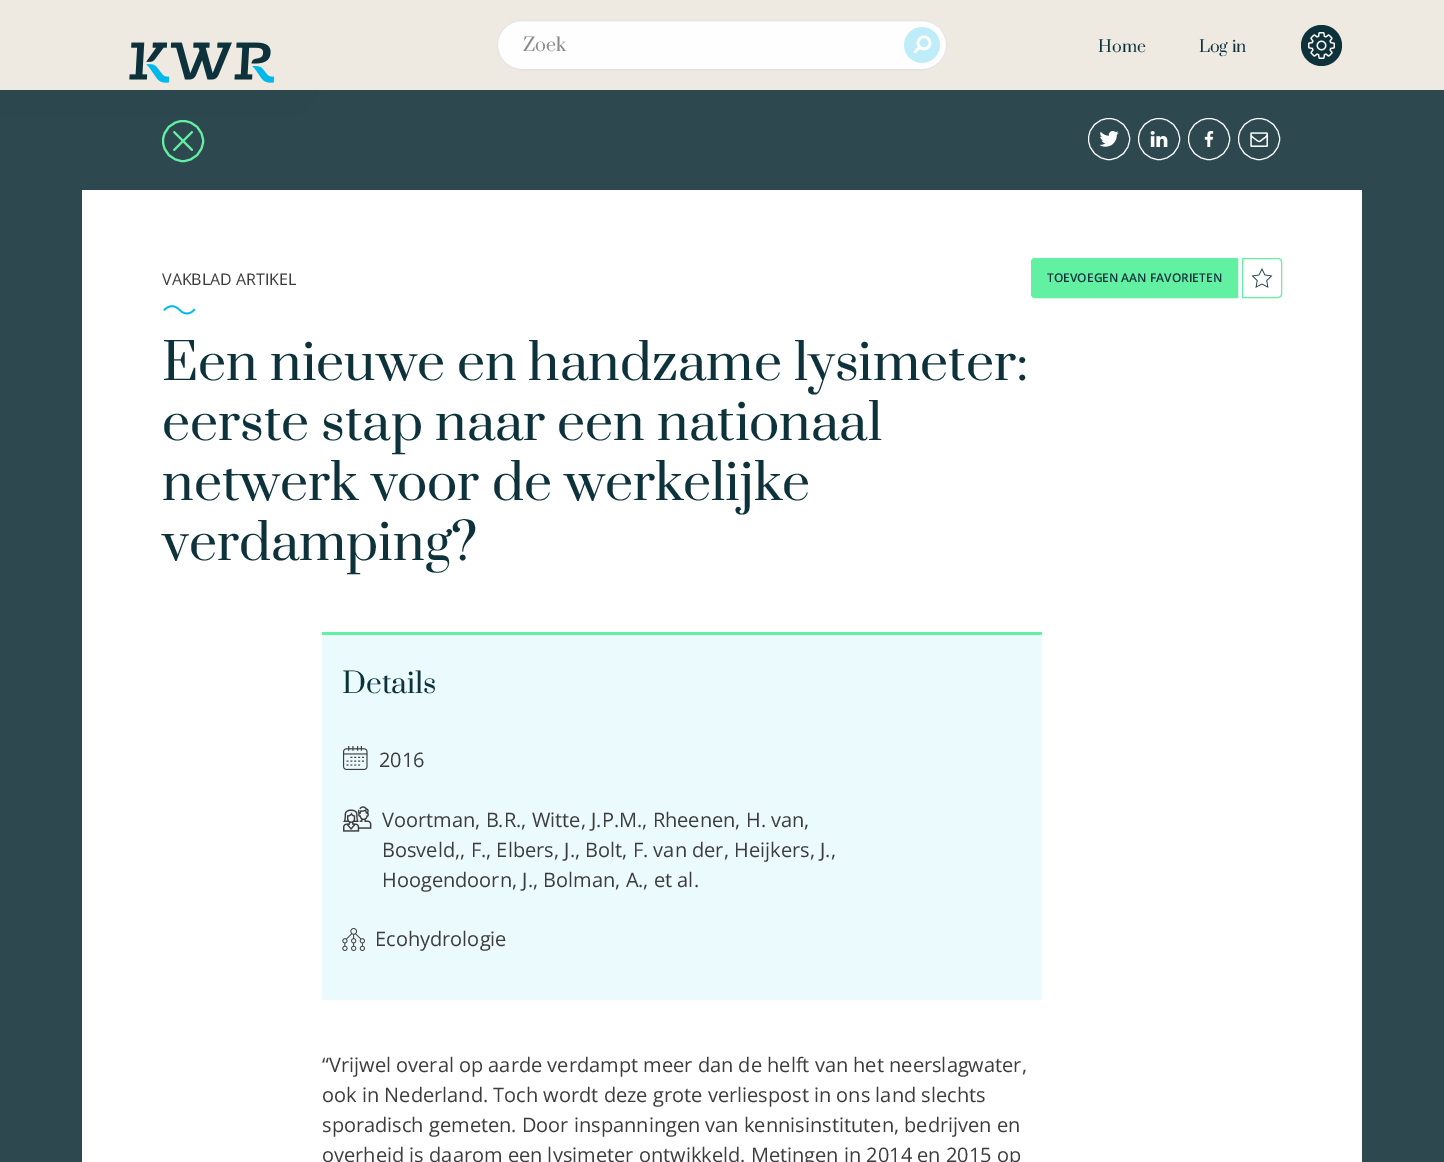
%!PS
<< /PageSize [1444 1162] /PageUsesTransparency true >> setpagedevice
/alpha { dup .setfillconstantalpha .setstrokeconstantalpha } def
/roundrect { 5 dict begin { /r /h /w /y /x } { exch def } forall
  x r add y moveto x w add y 2 copy h add r arct x w add y h add x 1 index r arct
  x y h add x y r arct x y 2 copy exch w add exch r arct closepath end } def
/picture { 5 dict begin { /h /w /y /x /name } { exch def } forall
  gsave x y translate w h scale
  w h 8 [w 0 0 h 0 0] name (r) file false 3 colorimage grestore end } def
0 .pushpdf14devicefilter
0 1162 translate 1 -1 scale
4 setmiterlimit
0.976 0.961 0.929 setrgbcolor
0 0 1444 1162 rectfill
0.933 0.918 0.886 setrgbcolor
0 0 1444 90 rectfill
newpath 62 117 moveto 62 74 lineto 486 74 lineto 487 89 lineto 330 89 lineto 323 89 320 92 316 97 curveto 309 107 lineto 304 113 302 117 290 117 curveto closepath fill
(img1.rgb) 129 42 146 41 picture
0.996 setgray
497 20 450 50 25 roundrect fill
0.1 alpha
0 setgray
497.5 20.5 449 49 24.5 roundrect stroke
/Prata-Regular [18 0 0 -18 0 0] selectfont
1 alpha
0.541 setgray
523 51 moveto (Zoek) show
(img2.rgb) 904 27 36 36 picture
/Prata-Regular [16 0 0 -16 0 0] selectfont
0.055 0.196 0.231 setrgbcolor
1098 52 moveto (Home) show
1199 52 moveto (Log in) show
newpath 1321.5 45.5 20.5 0 360 arc closepath fill
(img3.rgb) 1308 32 27 27 picture
0.933 0.918 0.886 setrgbcolor
0 90 62 27 rectfill
0.95 alpha
0.133 0.247 0.275 setrgbcolor
0 90 1444 1072 rectfill
1 alpha
0.384 0.941 0.635 setrgbcolor
2 setlinewidth
newpath 183 141 20 0 360 arc closepath stroke
(img4.rgb) 173 131 20 20 picture
1 setgray
1 setlinewidth
newpath 1109 139 20.5 0 360 arc closepath stroke
(img5.rgb) 1099 131 20 16 picture
newpath 1159 139 20.5 0 360 arc closepath stroke
(img6.rgb) 1150 131 18 16 picture
newpath 1209 139 20.5 0 360 arc closepath stroke
(img7.rgb) 1204 131 10 16 picture
newpath 1259 139 20.5 0 360 arc closepath stroke
(img8.rgb) 1250 132 18 15 picture
82 190 1280 972 rectfill
/OpenSans-Regular [16 0 0 -16 0 0] selectfont
0.235 setgray
162 285 moveto (VAKBLAD ARTIKEL) show
(img9.rgb) 163 305 33 10 picture
0.384 0.941 0.635 setrgbcolor
newpath 1035 258.5 moveto 1237.5 258.5 lineto 1237.5 297.5 lineto 1035 297.5 lineto 1033 297.5 1031.5 296 1031.5 294 curveto 1031.5 262 lineto 1031.5 260 1033 258.5 1035 258.5 curveto closepath gsave fill grestore
stroke
/OpenSans-SemiBold [12 0 0 -12 0 0] selectfont
0.055 0.196 0.231 setrgbcolor
1047 282 moveto (TOEVOEGEN AAN FAVORIETEN) show
0.384 0.941 0.635 setrgbcolor
newpath 1242.5 258.5 moveto 1278 258.5 lineto 1280 258.5 1281.5 260 1281.5 262 curveto 1281.5 294 lineto 1281.5 296 1280 297.5 1278 297.5 curveto 1242.5 297.5 lineto closepath stroke
(img10.rgb) 1251 268 22 20 picture
/Prata-Regular [50 0 0 -50 0 0] selectfont
0.055 0.196 0.231 setrgbcolor
162 380 moveto (Een nieuwe en handzame lysimeter:) show
162 440 moveto (eerste stap naar een nationaal) show
162 500 moveto (netwerk voor de werkelijke) show
162 560 moveto (verdamping?) show
0.922 0.98 0.992 setrgbcolor
322 635 720 365 rectfill
0.384 0.941 0.635 setrgbcolor
322 632 720 3 rectfill
/Prata-Regular [28 0 0 -28 0 0] selectfont
0.055 0.196 0.231 setrgbcolor
342 693 moveto (Details) show
(img11.rgb) 343 746 25 24 picture
/OpenSans-Regular [20 0 0 -20 0 0] selectfont
0.235 setgray
379 767 moveto (2016) show
(img12.rgb) 343 806 29 26 picture
382 827 moveto (Voortman, B.R., Witte, J.P.M., Rheenen, H. van,) show
382 857 moveto (Bosveld,, F., Elbers, J., Bolt, F. van der, Heijkers, J.,) show
382 887 moveto (Hoogendoorn, J., Bolman, A., et al.) show
(img13.rgb) 342 928 23 23 picture
375 946 moveto (Ecohydrologie) show
322 1072 moveto (“Vrijwel overal op aarde verdampt meer dan de helft van het neerslagwater,) show
322 1102 moveto (ook in Nederland. Toch wordt deze grote verliespost in ons land slechts) show
322 1132 moveto (sporadisch gemeten. Door inspanningen van kennisinstituten, bedrijven en) show
322 1162 moveto (overheid is daarom een lysimeter ontwikkeld. Metingen in 2014 en 2015 op) show
.poppdf14devicefilter showpage
